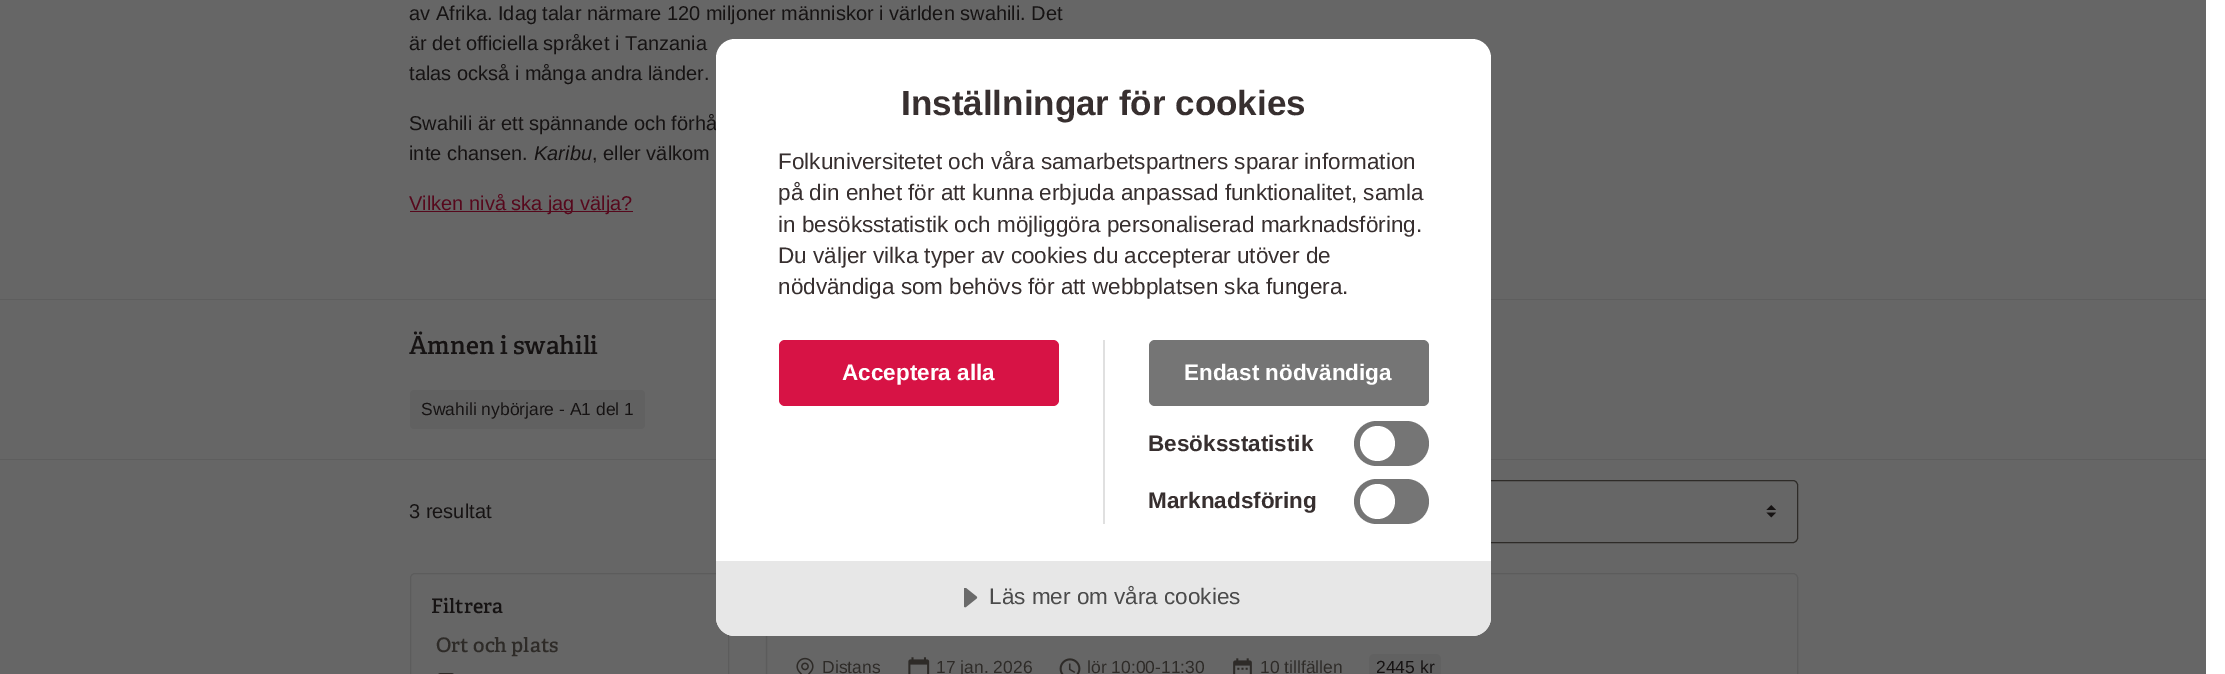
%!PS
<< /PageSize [2225 674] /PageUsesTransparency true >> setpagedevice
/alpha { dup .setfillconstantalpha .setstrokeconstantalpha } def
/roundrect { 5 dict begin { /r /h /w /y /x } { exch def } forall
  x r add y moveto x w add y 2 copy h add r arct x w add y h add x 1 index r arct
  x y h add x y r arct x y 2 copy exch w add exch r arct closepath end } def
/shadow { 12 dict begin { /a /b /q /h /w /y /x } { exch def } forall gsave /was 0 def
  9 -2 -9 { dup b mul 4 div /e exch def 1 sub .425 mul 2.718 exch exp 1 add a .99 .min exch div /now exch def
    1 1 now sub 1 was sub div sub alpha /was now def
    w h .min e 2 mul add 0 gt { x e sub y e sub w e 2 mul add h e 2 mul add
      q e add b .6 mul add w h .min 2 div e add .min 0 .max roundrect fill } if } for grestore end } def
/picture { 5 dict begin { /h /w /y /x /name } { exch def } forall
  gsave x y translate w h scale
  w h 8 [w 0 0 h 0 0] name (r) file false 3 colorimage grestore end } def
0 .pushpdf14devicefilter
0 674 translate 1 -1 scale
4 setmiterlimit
1 setgray
0 0 2225 674 rectfill
0.4 setgray
0 0 2206 674 rectfill
/LiberationSans-Regular [20 0 0 -20 0 0] selectfont
0.086 0.075 0.075 setrgbcolor
409 20 moveto (av Afrika. Idag talar närmare 120 miljoner människor i världen swahili. Det) show
409 50 moveto (är det officiella språket i Tanzania) show
409 80 moveto (talas också i många andra länder.) show
409 130 moveto (Swahili är ett spännande och förhå) show
409 160 moveto (inte chansen.) show
/LiberationSans-Italic [20 0 0 -20 0 0] selectfont
534 160 moveto (Karibu) show
/LiberationSans-Regular [20 0 0 -20 0 0] selectfont
592 160 moveto (, eller välkom) show
0.337 0.031 0.11 setrgbcolor
410 211 223 1 rectfill
409 210 moveto (Vilken nivå ska jag välja?) show
0.369 setgray
0 299 2206 1 rectfill
/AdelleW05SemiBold-SemiBold [25 0 0 -25 0 0] selectfont
0.086 0.075 0.075 setrgbcolor
409 354 moveto (Ämnen i swahili) show
0.38 setgray
410 390 235 39 4 roundrect fill
/LiberationSans-Regular [17.5 0 0 -17.5 0 0] selectfont
0.086 0.075 0.075 setrgbcolor
421 415 moveto (Swahili nybörjare - A1 del 1) show
0.369 setgray
0 459 2206 1 rectfill
/LiberationSans-Regular [20 0 0 -20 0 0] selectfont
0.086 0.075 0.075 setrgbcolor
409 518 moveto (3 resultat) show
(img1.rgb) 1766 505 10 13 picture
0.18 0.169 0.157 setrgbcolor
1261.5 480.5 536 62 4.5 roundrect stroke
0.361 setgray
410.5 573.5 318 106 4.5 roundrect stroke
/AdelleW05SemiBold-SemiBold [20 0 0 -20 0 0] selectfont
0.086 0.075 0.075 setrgbcolor
431 613 moveto (Filtrera) show
0.18 0.169 0.157 setrgbcolor
436 652 moveto (Ort och plats) show
436.5 673.5 19 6 4.5 roundrect stroke
0 setgray
766 574 1032 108 5 1 0.1 shadow
0.4 setgray
766.5 573.5 1031 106 4.5 roundrect gsave fill grestore
0.361 setgray
stroke
(img2.rgb) 796 657 18 17 picture
/LiberationSans-Regular [17.5 0 0 -17.5 0 0] selectfont
0.18 0.169 0.157 setrgbcolor
822 673 moveto (Distans) show
(img3.rgb) 908 657 22 17 picture
936 673 moveto (17 jan. 2026) show
(img4.rgb) 1059 658 22 16 picture
1087 673 moveto (lör 10:00-11:30) show
(img5.rgb) 1233 658 19 16 picture
1260 673 moveto (10 tillfällen) show
0.38 setgray
1369 654 72 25 5 roundrect fill
0.086 0.075 0.075 setrgbcolor
1376 673 moveto (2445 kr) show
1 setgray
716 39 775 597 19 roundrect fill
/LiberationSans-Bold [35 0 0 -35 0 0] selectfont
0.216 0.184 0.184 setrgbcolor
901 115 moveto (Inställningar för cookies) show
/LiberationSans-Regular [22.5 0 0 -22.5 0 0] selectfont
778 169 moveto (Folkuniversitetet och våra samarbetspartners sparar information) show
778 200 moveto (på din enhet för att kunna erbjuda anpassad funktionalitet, samla) show
778 232 moveto (in besöksstatistik och möjliggöra personaliserad marknadsföring.) show
778 263 moveto (Du väljer vilka typer av cookies du accepterar utöver de) show
778 294 moveto (nödvändiga som behövs för att webbplatsen ska fungera.) show
0.878 setgray
1103 340 2 184 rectfill
0.843 0.075 0.271 setrgbcolor
779 340 280 66 6 roundrect fill
/LiberationSans-Bold [22.5 0 0 -22.5 0 0] selectfont
1 setgray
842 380 moveto (Acceptera alla) show
0.459 setgray
1149 340 280 66 6 roundrect fill
1 setgray
1184 380 moveto (Endast nödvändiga) show
0.216 0.184 0.184 setrgbcolor
1148 451 moveto (Besöksstatistik) show
0.459 setgray
1354 421 75 45 22.5 roundrect fill
1 setgray
newpath 1377.5 443.5 17.5 0 360 arc closepath fill
0.216 0.184 0.184 setrgbcolor
1148 508 moveto (Marknadsföring) show
0.459 setgray
1354 479 75 45 22.5 roundrect fill
1 setgray
newpath 1377.5 501.5 17.5 0 360 arc closepath fill
0.906 setgray
newpath 716 561 moveto 1491 561 lineto 1491 617 lineto 1491 627.5 1482.5 636 1472 636 curveto 735 636 lineto 724.5 636 716 627.5 716 617 curveto closepath fill
(img6.rgb) 964 588 14 20 picture
/LiberationSans-Regular [22.5 0 0 -22.5 0 0] selectfont
0.294 setgray
989 604 moveto (Läs mer om våra cookies) show
.poppdf14devicefilter showpage
